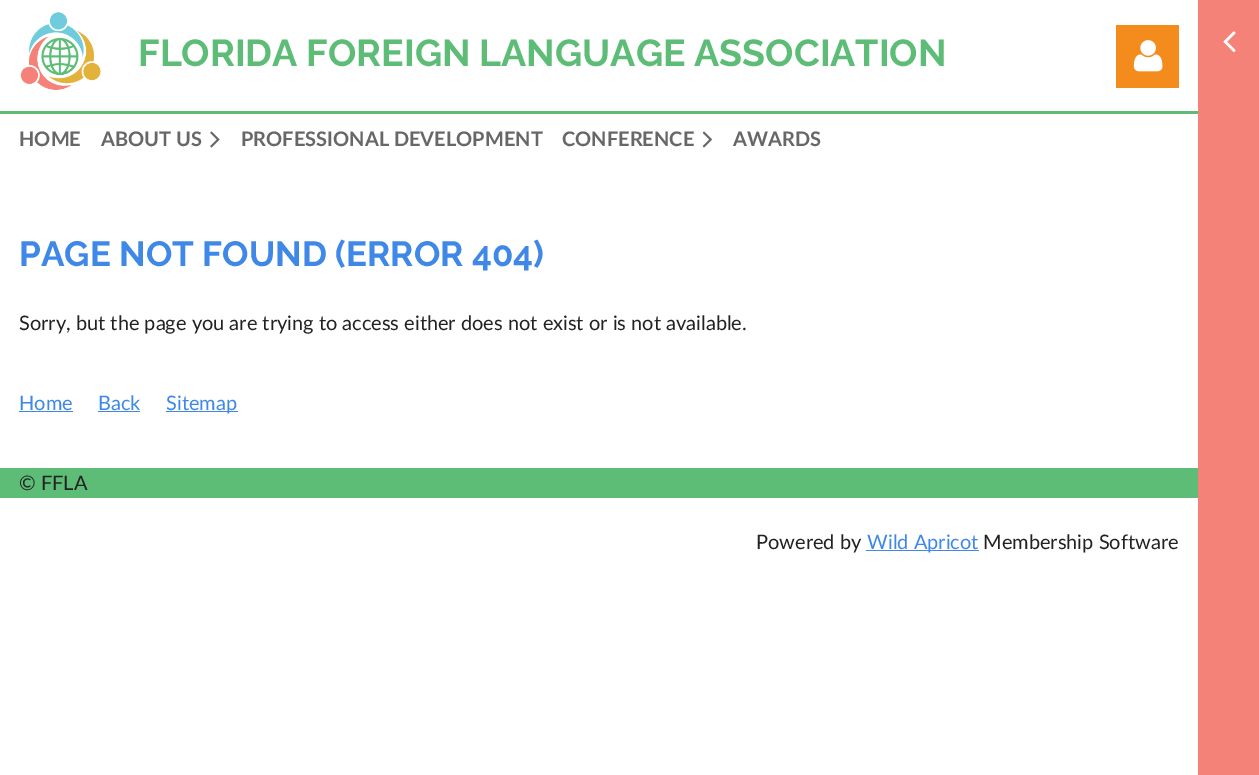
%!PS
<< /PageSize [1259 775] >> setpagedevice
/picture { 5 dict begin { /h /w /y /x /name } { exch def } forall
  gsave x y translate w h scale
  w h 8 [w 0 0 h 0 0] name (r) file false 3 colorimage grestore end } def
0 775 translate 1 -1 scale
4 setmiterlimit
1 setgray
0 0 1259 775 rectfill
(img1.rgb) 20 12 81 78 picture
/Raleway-Bold [37.5 0 0 -37.5 0 0] selectfont
0.365 0.741 0.467 setrgbcolor
138 66 moveto (FLORIDA FOREIGN LANGUAGE ASSOCIATION) show
0.953 0.549 0.11 setrgbcolor
1116 25 63 63 rectfill
(img2.rgb) 1133 40 30 32 picture
0.365 0.741 0.467 setrgbcolor
0 111 1198 3 rectfill
/Lato-Bold [20 0 0 -20 0 0] selectfont
0.404 setgray
19 146 moveto (HOME) show
101 146 moveto (ABOUT US) show
(img3.rgb) 210 131 10 17 picture
241 146 moveto (PROFESSIONAL DEVELOPMENT) show
562 146 moveto (CONFERENCE) show
(img4.rgb) 702 131 10 17 picture
733 146 moveto (AWARDS) show
/Raleway-Bold [35 0 0 -35 0 0] selectfont
0.247 0.533 0.91 setrgbcolor
19 266 moveto (PAGE NOT FOUND \(ERROR 404\)) show
/Lato-Regular [20 0 0 -20 0 0] selectfont
0.133 setgray
19 330 moveto (Sorry, but the page you are trying to access either does not exist or is not available.) show
0.247 0.533 0.91 setrgbcolor
19 410 moveto (Home) show
19 411 54 1 rectfill
98 410 moveto (Back) show
98 411 42 1 rectfill
166 411 72 1 rectfill
166 410 moveto (Sitemap) show
0.365 0.741 0.467 setrgbcolor
0 468 1198 30 rectfill
0.133 setgray
19 490 moveto (© FFLA) show
756 549 moveto (Powered by) show
0.247 0.533 0.91 setrgbcolor
866 550 113 1 rectfill
867 549 moveto (Wild Apricot) show
0.133 setgray
983 549 moveto (Membership Software) show
0.957 0.51 0.471 setrgbcolor
1198 0 61 775 rectfill
(img5.rgb) 1223 31 13 22 picture
showpage
